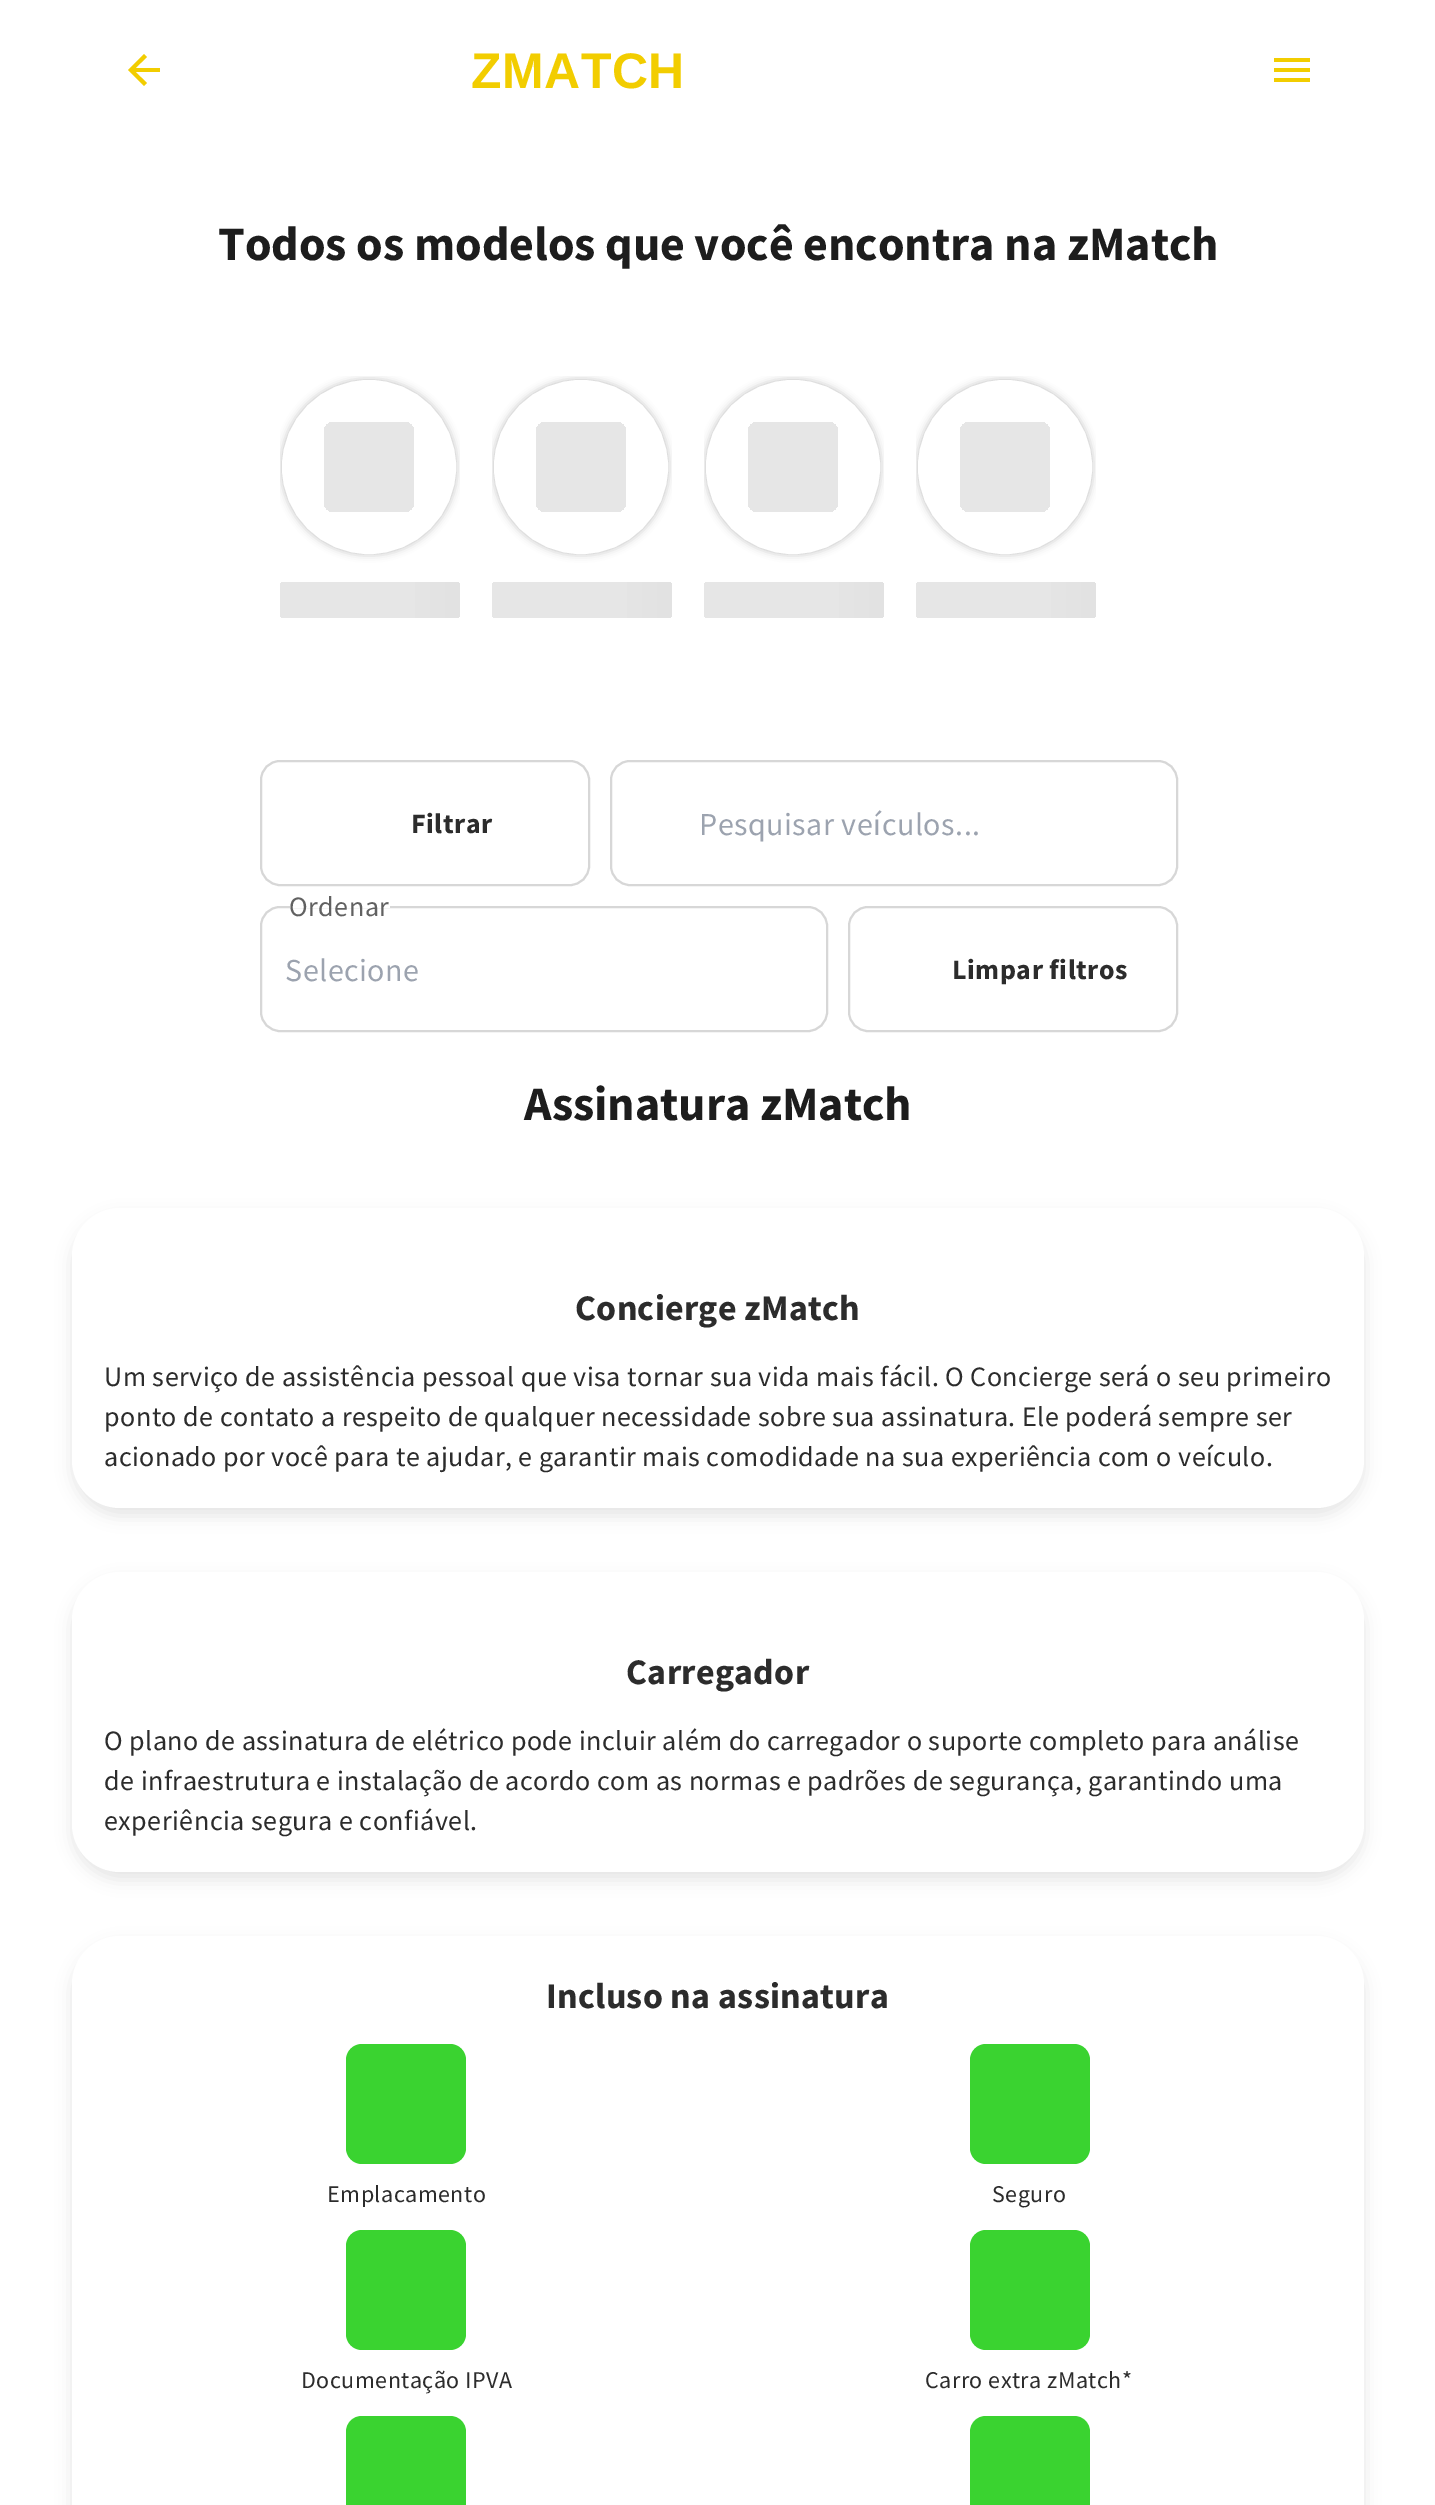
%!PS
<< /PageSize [1435 2505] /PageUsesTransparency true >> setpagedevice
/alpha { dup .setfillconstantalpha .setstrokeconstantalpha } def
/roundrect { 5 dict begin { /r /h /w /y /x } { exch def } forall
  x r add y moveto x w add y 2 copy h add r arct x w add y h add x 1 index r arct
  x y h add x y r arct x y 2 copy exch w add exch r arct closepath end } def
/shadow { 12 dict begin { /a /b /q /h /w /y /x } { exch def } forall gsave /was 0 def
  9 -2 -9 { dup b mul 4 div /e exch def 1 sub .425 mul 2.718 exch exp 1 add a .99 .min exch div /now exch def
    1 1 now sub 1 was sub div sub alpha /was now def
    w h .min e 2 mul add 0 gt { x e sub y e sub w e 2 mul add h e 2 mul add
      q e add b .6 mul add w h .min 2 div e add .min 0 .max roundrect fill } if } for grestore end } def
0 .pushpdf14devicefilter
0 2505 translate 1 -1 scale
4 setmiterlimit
1 setgray
0 0 1435 2505 rectfill
0.949 0.804 0 setrgbcolor
newpath 160 68 moveto 160 72 lineto 135.5 72 lineto 147 83 lineto 144 86 lineto 128 70 lineto 144 54 lineto 147 57 lineto 135.5 68 lineto closepath fill
/LiberationSans-Bold [50 0 0 -50 0 0] selectfont
471 88 moveto 0.5 0 (ZMATCH) ashow
newpath 1274 58 moveto 1310 58 lineto 1310 62 lineto 1274 62 lineto closepath 1274 72 moveto 1274 68 lineto 1310 68 lineto 1310 72 lineto closepath 1274 82 moveto 1274 78 lineto 1310 78 lineto 1310 82 lineto closepath fill
/SourceSansPro-Bold [48 0 0 -48 0 0] selectfont
0.114 setgray
218 260 moveto (Todos os modelos que você encontra na zMatch) show
gsave
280 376 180 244 rectclip
0 setgray
282 380 174 174 87 4 0.25 shadow
grestore
1 setgray
newpath 369 467 84 0 360 arc closepath gsave fill grestore
6 setlinewidth
stroke
gsave 324 422 90 90 10 roundrect clip newpath
<< /ShadingType 2 /ColorSpace /DeviceRGB /Coords [324 522 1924 522] /Extend [true true] /Function << /FunctionType 3 /Domain [0 1] /Functions [<< /FunctionType 2 /Domain [0 1] /C0 [0.902 0.902 0.902] /C1 [0.902 0.902 0.902] /N 1 >> << /FunctionType 2 /Domain [0 1] /C0 [0.902 0.902 0.902] /C1 [0.855 0.855 0.855] /N 1 >> << /FunctionType 2 /Domain [0 1] /C0 [0.855 0.855 0.855] /C1 [0.902 0.902 0.902] /N 1 >> << /FunctionType 2 /Domain [0 1] /C0 [0.902 0.902 0.902] /C1 [0.902 0.902 0.902] /N 1 >>] /Bounds [0.08 0.18 0.33] /Encode [0 1 0 1 0 1 0 1] >> >> shfill grestore
gsave 280 582 180 36 4 roundrect clip newpath
<< /ShadingType 2 /ColorSpace /DeviceRGB /Coords [280 682 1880 682] /Extend [true true] /Function << /FunctionType 3 /Domain [0 1] /Functions [<< /FunctionType 2 /Domain [0 1] /C0 [0.902 0.902 0.902] /C1 [0.902 0.902 0.902] /N 1 >> << /FunctionType 2 /Domain [0 1] /C0 [0.902 0.902 0.902] /C1 [0.855 0.855 0.855] /N 1 >> << /FunctionType 2 /Domain [0 1] /C0 [0.855 0.855 0.855] /C1 [0.902 0.902 0.902] /N 1 >> << /FunctionType 2 /Domain [0 1] /C0 [0.902 0.902 0.902] /C1 [0.902 0.902 0.902] /N 1 >>] /Bounds [0.08 0.18 0.33] /Encode [0 1 0 1 0 1 0 1] >> >> shfill grestore
gsave
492 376 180 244 rectclip
0 setgray
494 380 174 174 87 4 0.25 shadow
grestore
newpath 581 467 84 0 360 arc closepath gsave fill grestore
stroke
gsave 536 422 90 90 10 roundrect clip newpath
<< /ShadingType 2 /ColorSpace /DeviceRGB /Coords [536 522 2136 522] /Extend [true true] /Function << /FunctionType 3 /Domain [0 1] /Functions [<< /FunctionType 2 /Domain [0 1] /C0 [0.902 0.902 0.902] /C1 [0.902 0.902 0.902] /N 1 >> << /FunctionType 2 /Domain [0 1] /C0 [0.902 0.902 0.902] /C1 [0.855 0.855 0.855] /N 1 >> << /FunctionType 2 /Domain [0 1] /C0 [0.855 0.855 0.855] /C1 [0.902 0.902 0.902] /N 1 >> << /FunctionType 2 /Domain [0 1] /C0 [0.902 0.902 0.902] /C1 [0.902 0.902 0.902] /N 1 >>] /Bounds [0.08 0.18 0.33] /Encode [0 1 0 1 0 1 0 1] >> >> shfill grestore
gsave 492 582 180 36 4 roundrect clip newpath
<< /ShadingType 2 /ColorSpace /DeviceRGB /Coords [492 682 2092 682] /Extend [true true] /Function << /FunctionType 3 /Domain [0 1] /Functions [<< /FunctionType 2 /Domain [0 1] /C0 [0.902 0.902 0.902] /C1 [0.902 0.902 0.902] /N 1 >> << /FunctionType 2 /Domain [0 1] /C0 [0.902 0.902 0.902] /C1 [0.855 0.855 0.855] /N 1 >> << /FunctionType 2 /Domain [0 1] /C0 [0.855 0.855 0.855] /C1 [0.902 0.902 0.902] /N 1 >> << /FunctionType 2 /Domain [0 1] /C0 [0.902 0.902 0.902] /C1 [0.902 0.902 0.902] /N 1 >>] /Bounds [0.08 0.18 0.33] /Encode [0 1 0 1 0 1 0 1] >> >> shfill grestore
gsave
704 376 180 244 rectclip
0 setgray
706 380 174 174 87 4 0.25 shadow
grestore
newpath 793 467 84 0 360 arc closepath gsave fill grestore
stroke
gsave 748 422 90 90 10 roundrect clip newpath
<< /ShadingType 2 /ColorSpace /DeviceRGB /Coords [748 522 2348 522] /Extend [true true] /Function << /FunctionType 3 /Domain [0 1] /Functions [<< /FunctionType 2 /Domain [0 1] /C0 [0.902 0.902 0.902] /C1 [0.902 0.902 0.902] /N 1 >> << /FunctionType 2 /Domain [0 1] /C0 [0.902 0.902 0.902] /C1 [0.855 0.855 0.855] /N 1 >> << /FunctionType 2 /Domain [0 1] /C0 [0.855 0.855 0.855] /C1 [0.902 0.902 0.902] /N 1 >> << /FunctionType 2 /Domain [0 1] /C0 [0.902 0.902 0.902] /C1 [0.902 0.902 0.902] /N 1 >>] /Bounds [0.08 0.18 0.33] /Encode [0 1 0 1 0 1 0 1] >> >> shfill grestore
gsave 704 582 180 36 4 roundrect clip newpath
<< /ShadingType 2 /ColorSpace /DeviceRGB /Coords [704 682 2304 682] /Extend [true true] /Function << /FunctionType 3 /Domain [0 1] /Functions [<< /FunctionType 2 /Domain [0 1] /C0 [0.902 0.902 0.902] /C1 [0.902 0.902 0.902] /N 1 >> << /FunctionType 2 /Domain [0 1] /C0 [0.902 0.902 0.902] /C1 [0.855 0.855 0.855] /N 1 >> << /FunctionType 2 /Domain [0 1] /C0 [0.855 0.855 0.855] /C1 [0.902 0.902 0.902] /N 1 >> << /FunctionType 2 /Domain [0 1] /C0 [0.902 0.902 0.902] /C1 [0.902 0.902 0.902] /N 1 >>] /Bounds [0.08 0.18 0.33] /Encode [0 1 0 1 0 1 0 1] >> >> shfill grestore
gsave
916 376 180 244 rectclip
0 setgray
918 380 174 174 87 4 0.25 shadow
grestore
newpath 1005 467 84 0 360 arc closepath gsave fill grestore
stroke
gsave 960 422 90 90 10 roundrect clip newpath
<< /ShadingType 2 /ColorSpace /DeviceRGB /Coords [960 522 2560 522] /Extend [true true] /Function << /FunctionType 3 /Domain [0 1] /Functions [<< /FunctionType 2 /Domain [0 1] /C0 [0.902 0.902 0.902] /C1 [0.902 0.902 0.902] /N 1 >> << /FunctionType 2 /Domain [0 1] /C0 [0.902 0.902 0.902] /C1 [0.855 0.855 0.855] /N 1 >> << /FunctionType 2 /Domain [0 1] /C0 [0.855 0.855 0.855] /C1 [0.902 0.902 0.902] /N 1 >> << /FunctionType 2 /Domain [0 1] /C0 [0.902 0.902 0.902] /C1 [0.902 0.902 0.902] /N 1 >>] /Bounds [0.08 0.18 0.33] /Encode [0 1 0 1 0 1 0 1] >> >> shfill grestore
gsave 916 582 180 36 4 roundrect clip newpath
<< /ShadingType 2 /ColorSpace /DeviceRGB /Coords [916 682 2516 682] /Extend [true true] /Function << /FunctionType 3 /Domain [0 1] /Functions [<< /FunctionType 2 /Domain [0 1] /C0 [0.902 0.902 0.902] /C1 [0.902 0.902 0.902] /N 1 >> << /FunctionType 2 /Domain [0 1] /C0 [0.902 0.902 0.902] /C1 [0.855 0.855 0.855] /N 1 >> << /FunctionType 2 /Domain [0 1] /C0 [0.855 0.855 0.855] /C1 [0.902 0.902 0.902] /N 1 >> << /FunctionType 2 /Domain [0 1] /C0 [0.902 0.902 0.902] /C1 [0.902 0.902 0.902] /N 1 >>] /Bounds [0.08 0.18 0.33] /Encode [0 1 0 1 0 1 0 1] >> >> shfill grestore
0.843 setgray
2 setlinewidth
261 761 328 124 19 roundrect stroke
/SourceSansPro-Bold [28 0 0 -28 0 0] selectfont
0.173 setgray
411 833 moveto 0.5 0 (Filtrar) ashow
0.843 setgray
611 761 566 124 19 roundrect stroke
/SourceSansPro-Regular [32 0 0 -32 0 0] selectfont
0.612 0.639 0.686 setrgbcolor
699 835 moveto 0.5 0 (Pesquisar veículos...) ashow
0.843 setgray
261 907 566 124 19 roundrect stroke
1 setgray
290 906 100 2 rectfill
/SourceSansPro-Regular [28 0 0 -28 0 0] selectfont
0.38 setgray
289 916 moveto 0.5 0 (Ordenar) ashow
/SourceSansPro-Regular [32 0 0 -32 0 0] selectfont
0.612 0.639 0.686 setrgbcolor
285 981 moveto 0.5 0 (Selecione) ashow
0.843 setgray
849 907 328 124 19 roundrect stroke
/SourceSansPro-Bold [28 0 0 -28 0 0] selectfont
0.173 setgray
952 979 moveto 0.5 0 (Limpar filtros) ashow
/SourceSansPro-Bold [48 0 0 -48 0 0] selectfont
0.114 setgray
524 1120 moveto (Assinatura zMatch) show
0 setgray
72 1216 1292 300 48 8 0.1 shadow
1 setgray
72 1208 1292 300 48 roundrect fill
/SourceSansPro-Bold [36 0 0 -36 0 0] selectfont
0.173 setgray
575 1320 moveto 0.3 0 (Concierge zMatch) ashow
/SourceSansPro-Regular [28 0 0 -28 0 0] selectfont
104 1386 moveto 0.5 0 (Um serviço de assistência pessoal que visa tornar sua vida mais fácil. O Concierge será o seu primeiro) ashow
104 1426 moveto 0.5 0 (ponto de contato a respeito de qualquer necessidade sobre sua assinatura. Ele poderá sempre ser) ashow
104 1466 moveto 0.5 0 (acionado por você para te ajudar, e garantir mais comodidade na sua experiência com o veículo.) ashow
0 setgray
72 1580 1292 300 48 8 0.1 shadow
1 setgray
72 1572 1292 300 48 roundrect fill
/SourceSansPro-Bold [36 0 0 -36 0 0] selectfont
0.173 setgray
626 1684 moveto 0.3 0 (Carregador) ashow
/SourceSansPro-Regular [28 0 0 -28 0 0] selectfont
104 1750 moveto 0.5 0 (O plano de assinatura de elétrico pode incluir além do carregador o suporte completo para análise) ashow
104 1790 moveto 0.5 0 (de infraestrutura e instalação de acordo com as normas e padrões de segurança, garantindo uma) ashow
104 1830 moveto 0.5 0 (experiência segura e confiável.) ashow
0 setgray
72 1944 1292 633 48 8 0.1 shadow
1 setgray
newpath 120 1936 moveto 1316 1936 lineto 1342.5 1936 1364 1957.5 1364 1984 curveto 1364 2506 lineto 72 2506 lineto 72 1984 lineto 72 1957.5 93.5 1936 120 1936 curveto closepath fill
/SourceSansPro-Bold [36 0 0 -36 0 0] selectfont
0.173 setgray
546 2008 moveto 0.3 0 (Incluso na assinatura) ashow
0.227 0.827 0.188 setrgbcolor
346 2044 120 120 16 roundrect fill
/SourceSansPro-Regular [24 0 0 -24 0 0] selectfont
0.173 setgray
327 2202 moveto 0.5 0 (Emplacamento) ashow
0.227 0.827 0.188 setrgbcolor
970 2044 120 120 16 roundrect fill
0.173 setgray
992 2202 moveto 0.5 0 (Seguro) ashow
0.227 0.827 0.188 setrgbcolor
346 2230 120 120 16 roundrect fill
0.173 setgray
301 2388 moveto 0.5 0 (Documentação IPVA) ashow
0.227 0.827 0.188 setrgbcolor
970 2230 120 120 16 roundrect fill
0.173 setgray
925 2388 moveto 0.5 0 (Carro extra zMatch*) ashow
0.227 0.827 0.188 setrgbcolor
newpath 362 2416 moveto 450 2416 lineto 459 2416 466 2423 466 2432 curveto 466 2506 lineto 346 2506 lineto 346 2432 lineto 346 2423 353 2416 362 2416 curveto closepath fill
newpath 986 2416 moveto 1074 2416 lineto 1083 2416 1090 2423 1090 2432 curveto 1090 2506 lineto 970 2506 lineto 970 2432 lineto 970 2423 977 2416 986 2416 curveto closepath fill
.poppdf14devicefilter showpage
